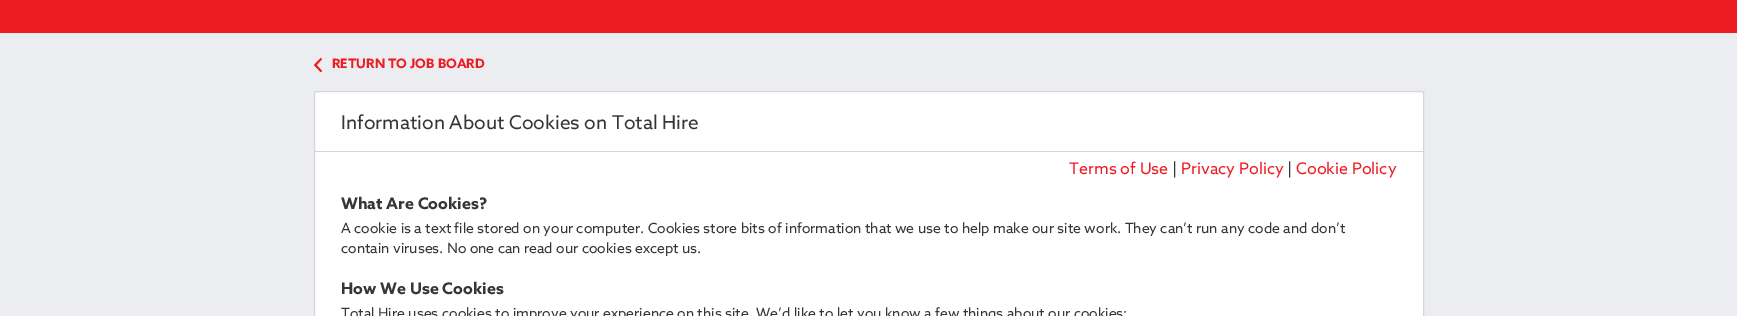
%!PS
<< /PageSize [1737 316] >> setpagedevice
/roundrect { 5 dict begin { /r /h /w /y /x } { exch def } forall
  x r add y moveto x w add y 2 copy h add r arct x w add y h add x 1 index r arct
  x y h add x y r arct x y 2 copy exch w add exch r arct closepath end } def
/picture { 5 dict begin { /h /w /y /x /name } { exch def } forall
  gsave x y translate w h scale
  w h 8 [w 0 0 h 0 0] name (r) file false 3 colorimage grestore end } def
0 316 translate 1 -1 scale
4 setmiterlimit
0.925 0.929 0.941 setrgbcolor
0 0 1737 316 rectfill
0.929 0.11 0.137 setrgbcolor
0 0 1737 33 rectfill
(img1.rgb) 314 58 8 14 picture
/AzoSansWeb-Bold [13 0 0 -13 0 0] selectfont
332 68 moveto (RETURN TO JOB BOARD) show
1 setgray
314.5 91.5 1109 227 1.5 roundrect gsave fill grestore
0.839 setgray
stroke
315 151 1108 1 rectfill
/AzoSansWeb-Regular [19 0 0 -19 0 0] selectfont
0.212 setgray
341 129 moveto (Information About Cookies on Total Hire) show
/AzoSansWeb-Regular [16 0 0 -16 0 0] selectfont
0.929 0.11 0.137 setrgbcolor
1069 174 moveto (Terms of Use) show
0.212 setgray
1172 174 moveto (|) show
0.929 0.11 0.137 setrgbcolor
1181 174 moveto (Privacy Policy) show
0.212 setgray
1287 174 moveto (|) show
0.929 0.11 0.137 setrgbcolor
1296 174 moveto (Cookie Policy) show
/AzoSansWeb-Bold [16 0 0 -16 0 0] selectfont
0.212 setgray
341 209 moveto (What Are Cookies?) show
/AzoSansWeb-Regular [14 0 0 -14 0 0] selectfont
341 233 moveto (A cookie is a text file stored on your computer. Cookies store bits of information that we use to help make our site work. They can’t run any code and don’t) show
341 253 moveto (contain viruses. No one can read our cookies except us.) show
/AzoSansWeb-Bold [16 0 0 -16 0 0] selectfont
341 294 moveto (How We Use Cookies) show
/AzoSansWeb-Regular [14 0 0 -14 0 0] selectfont
341 318 moveto (Total Hire uses cookies to improve your experience on this site. We’d like to let you know a few things about our cookies:) show
showpage
